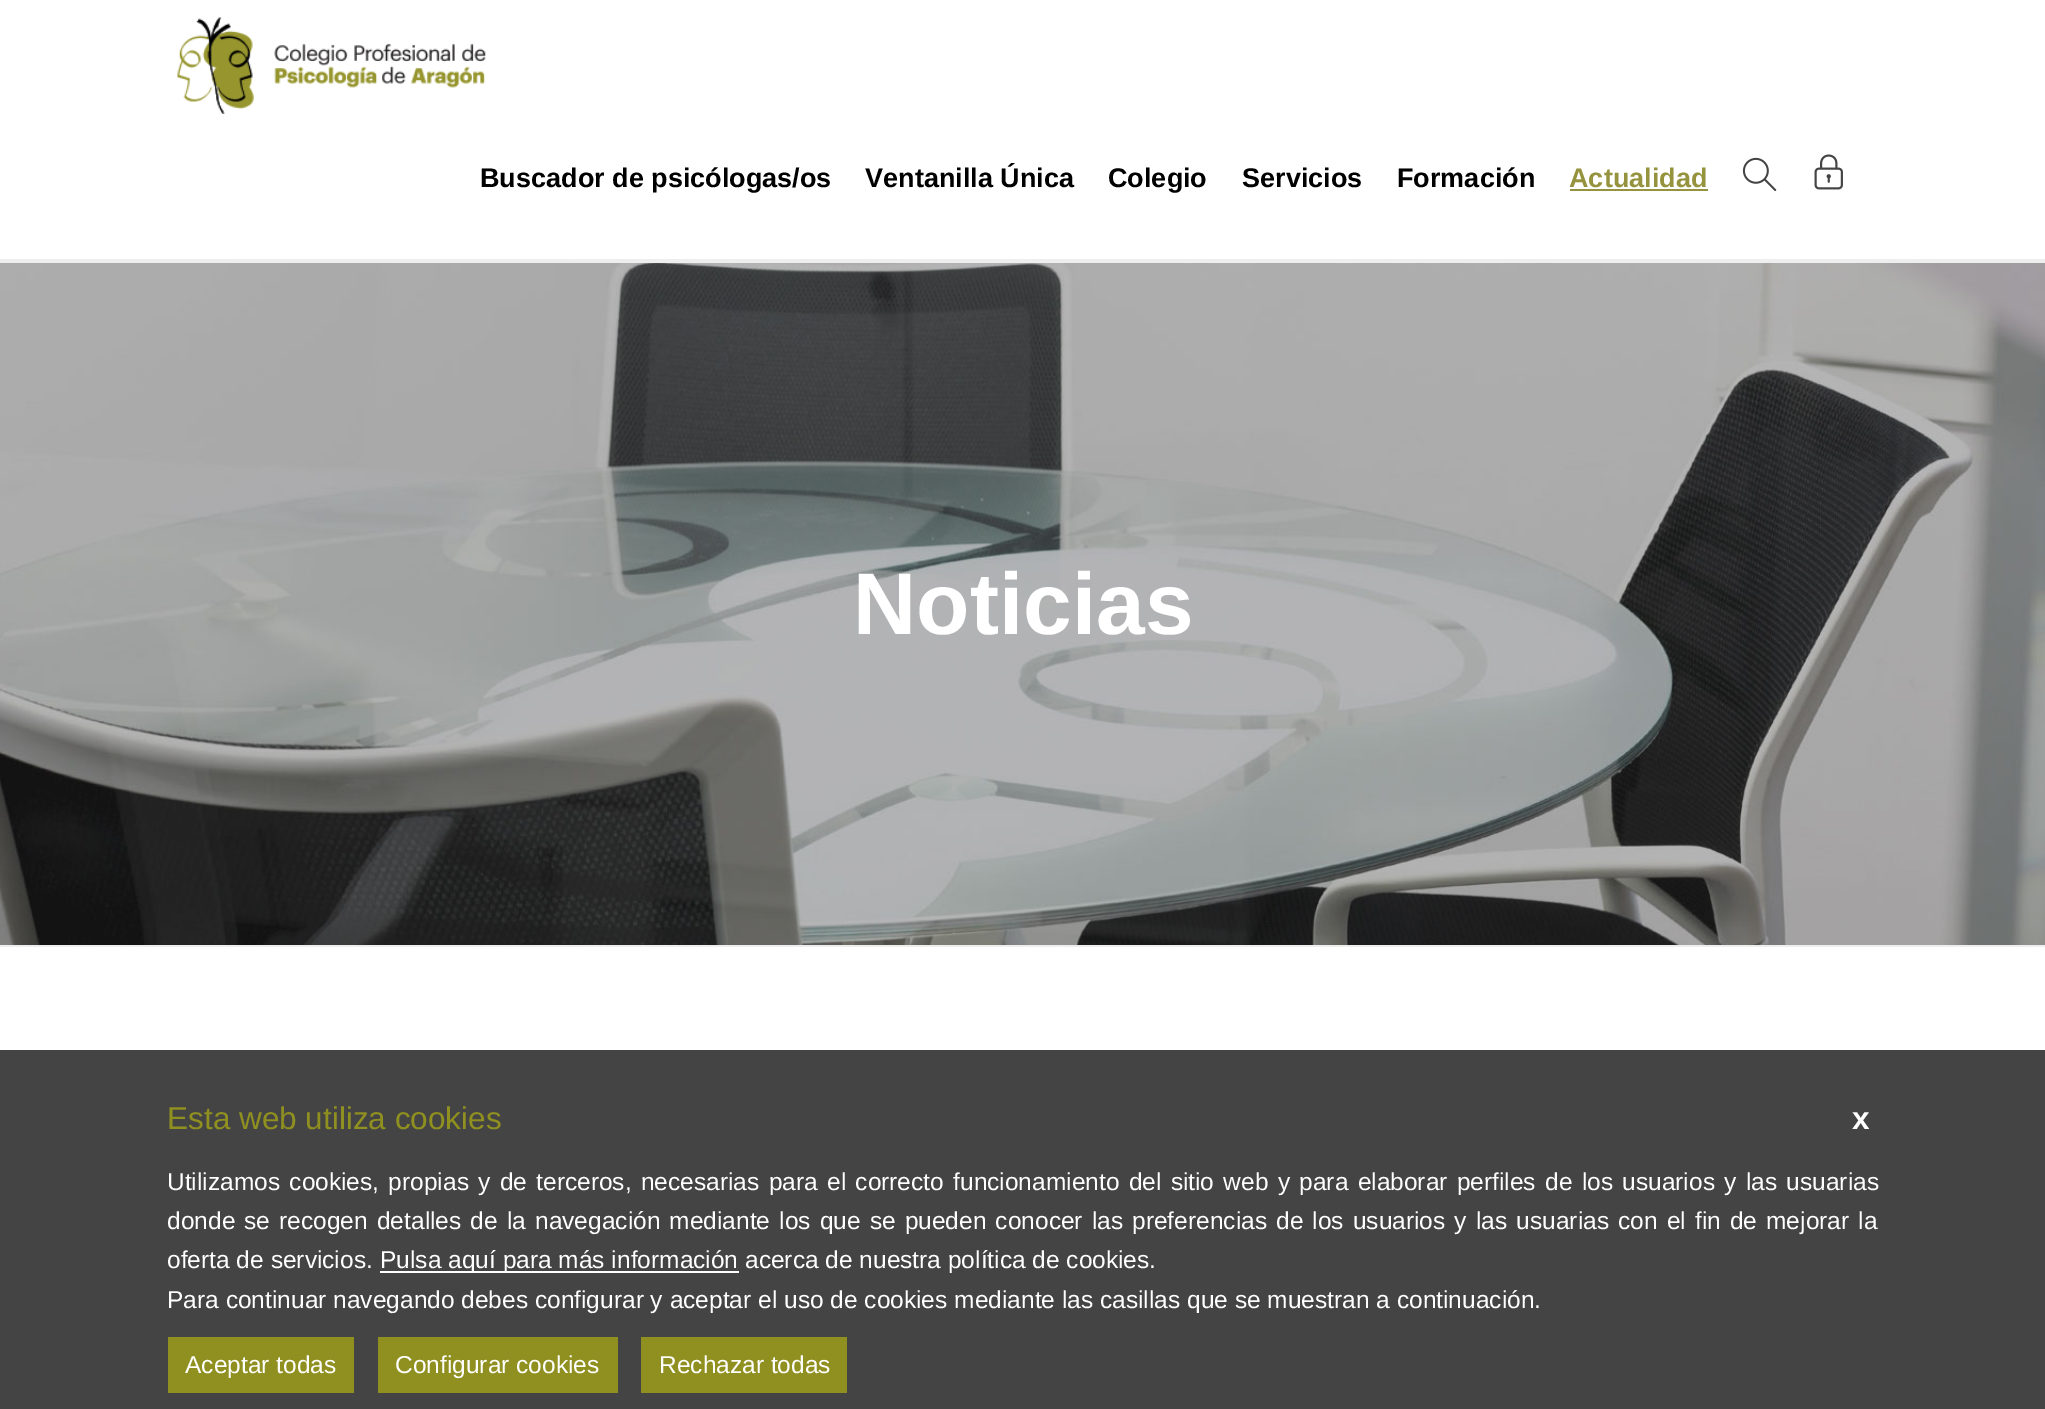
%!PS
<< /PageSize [2045 1409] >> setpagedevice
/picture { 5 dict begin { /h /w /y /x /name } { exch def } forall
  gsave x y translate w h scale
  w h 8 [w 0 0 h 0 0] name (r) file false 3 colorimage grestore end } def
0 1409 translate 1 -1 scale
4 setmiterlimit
1 setgray
0 0 2045 1409 rectfill
0.933 setgray
0 259 2045 4 rectfill
(img1.rgb) 177 17 309 97 picture
/LiberationSans-Bold [27 0 0 -27 0 0] selectfont
0 setgray
480 187 moveto (Buscador de psicólogas/os) show
865 187 moveto (Ventanilla Única) show
1108 187 moveto (Colegio) show
1242 187 moveto (Servicios) show
1397 187 moveto (Formación) show
0.584 0.576 0.243 setrgbcolor
1569 187 moveto (Actualidad) show
1570 189 138 2 rectfill
(img2.rgb) 1742 157 35 35 picture
(img3.rgb) 1814 154 29 36 picture
0.267 setgray
0 1050 2045 359 rectfill
/LiberationSans-Regular [31.5 0 0 -31.5 0 0] selectfont
0.565 0.565 0.125 setrgbcolor
167 1129 moveto (Esta web utiliza cookies) show
/LiberationSans-Bold [31.5 0 0 -31.5 0 0] selectfont
1 setgray
1852 1129 moveto (x) show
/LiberationSans-Regular [24.5 0 0 -24.5 0 0] selectfont
167 1190 moveto 2.5 0 32 (Utilizamos cookies, propias y de terceros, necesarias para el correcto funcionamiento del sitio web y para elaborar perfiles de los usuarios y las usuarias) widthshow
167 1229 moveto 2.3 0 32 (donde se recogen detalles de la navegación mediante los que se pueden conocer las preferencias de los usuarios y las usuarias con el fin de mejorar la) widthshow
167 1268 moveto (oferta de servicios.) show
380 1271 359 2 rectfill
380 1268 moveto (Pulsa aquí para más información acerca de nuestra política de cookies.) show
167 1308 moveto (Para continuar navegando debes configurar y aceptar el uso de cookies mediante las casillas que se muestran a continuación.) show
0.565 0.565 0.125 setrgbcolor
168 1337 186 56 rectfill
1 setgray
185 1373 moveto (Aceptar todas) show
0.565 0.565 0.125 setrgbcolor
378 1337 240 56 rectfill
1 setgray
395 1373 moveto (Configurar cookies) show
0.565 0.565 0.125 setrgbcolor
641 1337 206 56 rectfill
1 setgray
659 1373 moveto (Rechazar todas) show
(img4.rgb) 0 263 2045 682 picture
0.933 setgray
0 945 2045 2 rectfill
/LiberationSans-Bold [87.5 0 0 -87.5 0 0] selectfont
1 setgray
853 634 moveto (Noticias) show
showpage
